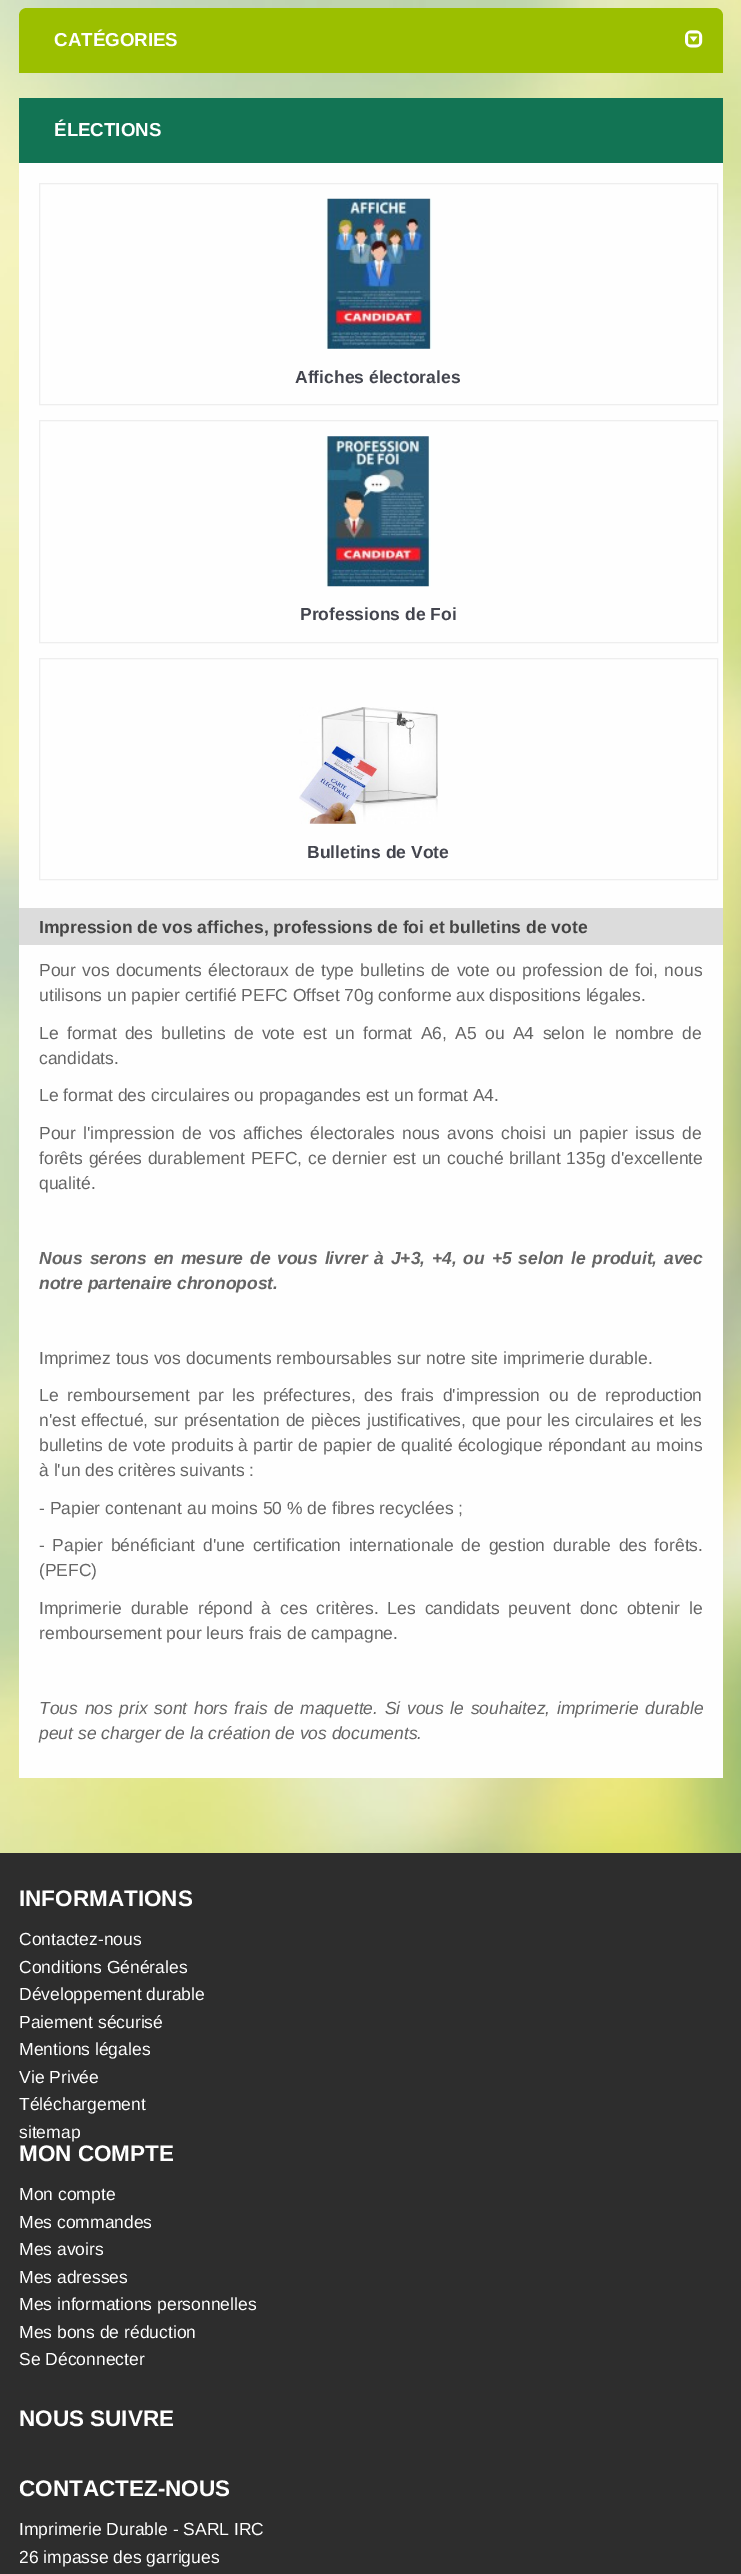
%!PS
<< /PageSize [741 2574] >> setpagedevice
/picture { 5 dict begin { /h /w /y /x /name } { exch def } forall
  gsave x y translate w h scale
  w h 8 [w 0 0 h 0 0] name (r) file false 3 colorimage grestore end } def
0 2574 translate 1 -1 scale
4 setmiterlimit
1 setgray
0 0 741 2574 rectfill
(img1.rgb) 0 0 741 1853 picture
0.608 0.749 0 setrgbcolor
newpath 27 8 moveto 715 8 lineto 719.5 8 723 11.5 723 16 curveto 723 73 lineto 19 73 lineto 19 16 lineto 19 11.5 22.5 8 27 8 curveto closepath fill
/LiberationSans-Bold [18.75 0 0 -18.75 0 0] selectfont
1 setgray
54 46 moveto (CATÉGORIES) show
(img2.rgb) 685 30 18 18 picture
0.071 0.455 0.329 setrgbcolor
19 98 704 65 rectfill
1 setgray
54 136 moveto (ÉLECTIONS) show
0.996 setgray
19 163 704 1615 rectfill
0.933 setgray
39.5 183.5 678 221 rectstroke
(img3.rgb) 325 198 107 151 picture
/LiberationSans-Bold [17.5 0 0 -17.5 0 0] selectfont
0.263 0.271 0.306 setrgbcolor
295 383 moveto (Affiches électorales) show
0.933 setgray
39.5 420.5 678 222 rectstroke
(img4.rgb) 325 436 106 151 picture
0.263 0.271 0.306 setrgbcolor
300 620 moveto (Professions de Foi) show
0.933 setgray
39.5 658.5 678 221 rectstroke
(img5.rgb) 299 707 139 117 picture
0.263 0.271 0.306 setrgbcolor
307 858 moveto (Bulletins de Vote) show
0.863 setgray
19 908 704 37 rectfill
0.267 setgray
39 933 moveto (Impression de vos affiches, professions de foi et bulletins de vote) show
/LiberationSans-Regular [17.5 0 0 -17.5 0 0] selectfont
0.396 setgray
39 976 moveto 1.5 0 32 (Pour vos documents électoraux de type bulletins de vote ou profession de foi, nous) widthshow
39 1001 moveto (utilisons un papier certifié PEFC Offset 70g conforme aux dispositions légales.) show
39 1039 moveto 3.5 0 32 (Le format des bulletins de vote est un format A6, A5 ou A4 selon le nombre de) widthshow
39 1064 moveto (candidats.) show
39 1101 moveto (Le format des circulaires ou propagandes est un format A4.) show
39 1139 moveto 2.25 0 32 (Pour l'impression de vos affiches électorales nous avons choisi un papier issus de) widthshow
39 1164 moveto 0.9 0 32 (forêts gérées durablement PEFC, ce dernier est un couché brillant 135g d'excellente) widthshow
39 1189 moveto (qualité.) show
/LiberationSans-BoldItalic [17.5 0 0 -17.5 0 0] selectfont
39 1264 moveto 1.9 0 32 (Nous serons en mesure de vous livrer à J+3, +4, ou +5 selon le produit, avec) widthshow
39 1289 moveto (notre partenaire chronopost.) show
/LiberationSans-Regular [17.5 0 0 -17.5 0 0] selectfont
39 1364 moveto (Imprimez tous vos documents remboursables sur notre site imprimerie durable.) show
39 1401 moveto 3.75 0 32 (Le remboursement par les préfectures, des frais d'impression ou de reproduction) widthshow
39 1426 moveto 0.75 0 32 (n'est effectué, sur présentation de pièces justificatives, que pour les circulaires et les) widthshow
39 1451 moveto 0.25 0 32 (bulletins de vote produits à partir de papier de qualité écologique répondant au moins) widthshow
39 1476 moveto (à l'un des critères suivants :) show
39 1514 moveto (- Papier contenant au moins 50 % de fibres recyclées ;) show
39 1551 moveto 2.75 0 32 (- Papier bénéficiant d'une certification internationale de gestion durable des forêts.) widthshow
39 1576 moveto (\(PEFC\)) show
39 1614 moveto 4.1 0 32 (Imprimerie durable répond à ces critères. Les candidats peuvent donc obtenir le) widthshow
39 1639 moveto (remboursement pour leurs frais de campagne.) show
/LiberationSans-Italic [17.5 0 0 -17.5 0 0] selectfont
39 1714 moveto 1.75 0 32 (Tous nos prix sont hors frais de maquette. Si vous le souhaitez, imprimerie durable) widthshow
39 1739 moveto (peut se charger de la création de vos documents.) show
0.176 setgray
0 1853 741 721 rectfill
/LiberationSans-Bold [22.5 0 0 -22.5 0 0] selectfont
1 setgray
19 1906 moveto (INFORMATIONS) show
/LiberationSans-Regular [17.5 0 0 -17.5 0 0] selectfont
19 1945 moveto (Contactez-nous) show
19 1973 moveto (Conditions Générales) show
19 2000 moveto (Développement durable) show
19 2028 moveto (Paiement sécurisé) show
19 2055 moveto (Mentions légales) show
19 2083 moveto (Vie Privée) show
19 2110 moveto (Téléchargement) show
19 2138 moveto (sitemap) show
/LiberationSans-Bold [22.5 0 0 -22.5 0 0] selectfont
19 2161 moveto (MON COMPTE) show
/LiberationSans-Regular [17.5 0 0 -17.5 0 0] selectfont
19 2200 moveto (Mon compte) show
19 2228 moveto (Mes commandes) show
19 2255 moveto (Mes avoirs) show
19 2283 moveto (Mes adresses) show
19 2310 moveto (Mes informations personnelles) show
19 2338 moveto (Mes bons de réduction) show
19 2365 moveto (Se Déconnecter) show
/LiberationSans-Bold [22.5 0 0 -22.5 0 0] selectfont
19 2426 moveto (NOUS SUIVRE) show
19 2496 moveto (CONTACTEZ-NOUS) show
/LiberationSans-Regular [17.5 0 0 -17.5 0 0] selectfont
19 2535 moveto (Imprimerie Durable - SARL IRC) show
19 2563 moveto (26 impasse des garrigues) show
showpage
